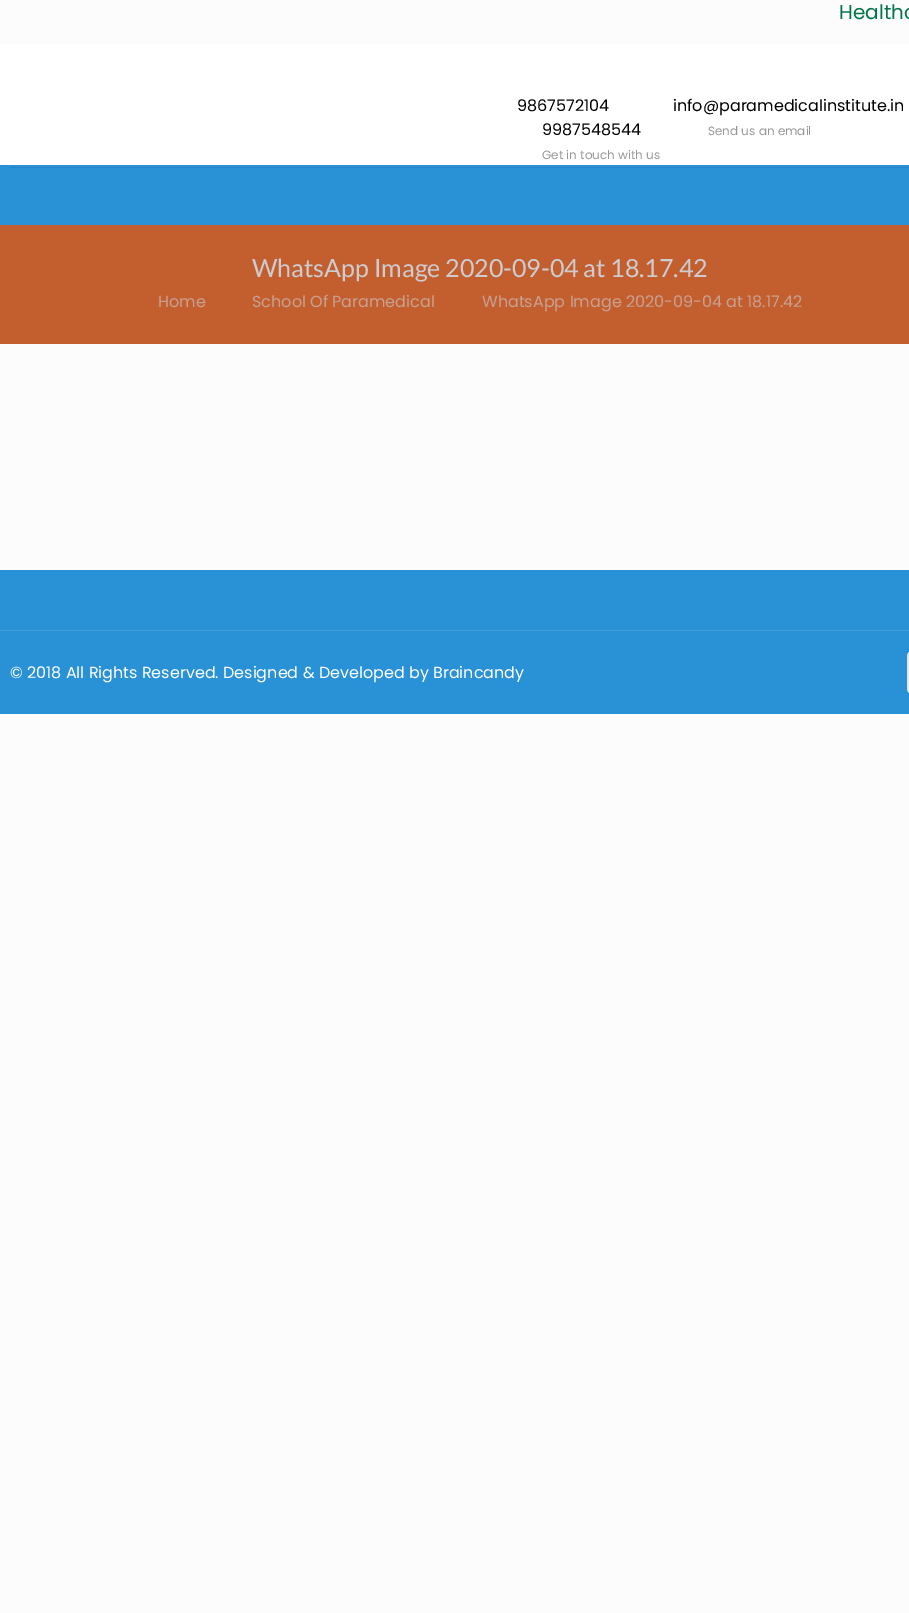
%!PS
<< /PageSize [909 1613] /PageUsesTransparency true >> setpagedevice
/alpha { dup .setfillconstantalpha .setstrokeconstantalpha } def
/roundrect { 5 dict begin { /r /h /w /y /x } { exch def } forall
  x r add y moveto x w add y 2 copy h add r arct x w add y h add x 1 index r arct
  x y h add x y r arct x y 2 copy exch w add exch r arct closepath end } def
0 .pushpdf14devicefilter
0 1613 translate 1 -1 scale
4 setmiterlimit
0.988 setgray
0 0 909 1613 rectfill
/Poppins-Regular [20 0 0 -20 0 0] selectfont
0 0.459 0.286 setrgbcolor
839 19 moveto (Healthc) show
1 setgray
0 44 909 121 rectfill
0.161 0.569 0.839 setrgbcolor
0 165 909 60 rectfill
0.149 0.522 0.773 setrgbcolor
10 167 899 1 rectfill
/Poppins-Regular [16 0 0 -16 0 0] selectfont
0 setgray
517 111 moveto (9867572104) show
542 135 moveto (9987548544) show
/Poppins-Regular [12 0 0 -12 0 0] selectfont
0.596 0.588 0.588 setrgbcolor
542 159 moveto (Get in touch with us) show
/Poppins-Regular [16 0 0 -16 0 0] selectfont
0 setgray
673 111 moveto (info@paramedicalinstitute.in) show
/Poppins-Regular [12 0 0 -12 0 0] selectfont
0.596 0.588 0.588 setrgbcolor
708 135 moveto (Send us an email) show
0.765 0.373 0.184 setrgbcolor
0 225 909 119 rectfill
/Lato-Regular [25 0 0 -25 0 0] selectfont
0.8 0.8 0.82 setrgbcolor
252 277 moveto (WhatsApp Image 2020-09-04 at 18.17.42) show
/Poppins-Regular [16 0 0 -16 0 0] selectfont
0.784 0.627 0.565 setrgbcolor
158 307 moveto (Home) show
252 307 moveto (School Of Paramedical) show
482 307 moveto (WhatsApp Image 2020-09-04 at 18.17.42) show
0.161 0.569 0.839 setrgbcolor
0 570 909 144 rectfill
0.243 0.612 0.855 setrgbcolor
0 630 909 1 rectfill
1 setgray
10 678 moveto (© 2018 All Rights Reserved. Designed & Developed by Braincandy) show
0.969 setgray
907 651 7 43 5 roundrect fill
0.03 alpha
0 setgray
907.5 651.5 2 42 rectstroke
0.05 alpha
907 651 2 43 rectfill
.poppdf14devicefilter showpage
